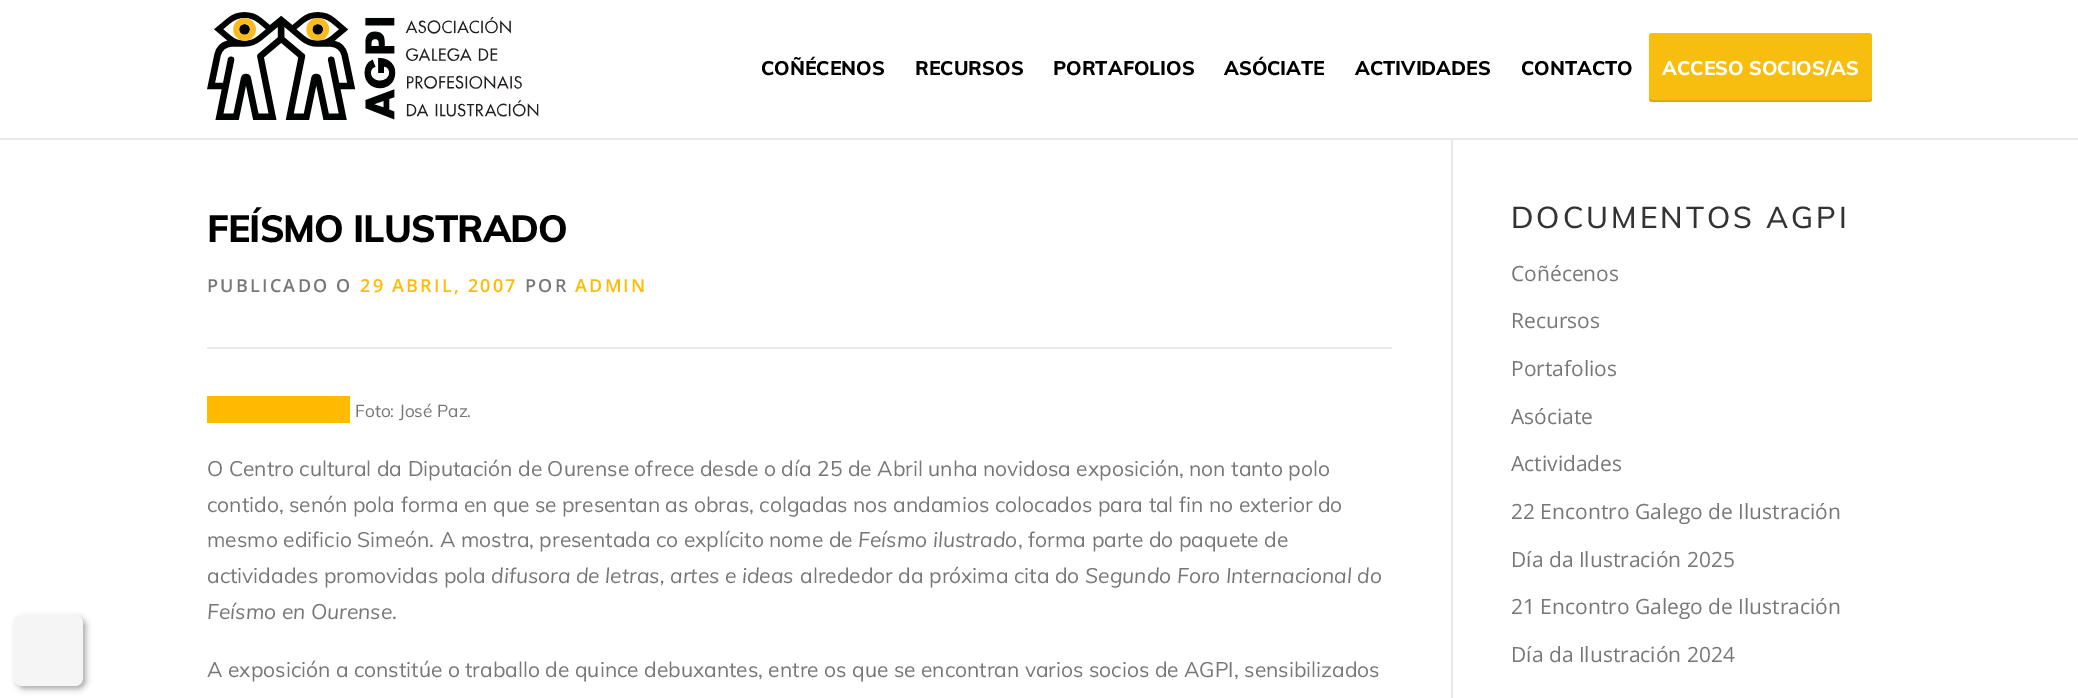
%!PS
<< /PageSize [2078 698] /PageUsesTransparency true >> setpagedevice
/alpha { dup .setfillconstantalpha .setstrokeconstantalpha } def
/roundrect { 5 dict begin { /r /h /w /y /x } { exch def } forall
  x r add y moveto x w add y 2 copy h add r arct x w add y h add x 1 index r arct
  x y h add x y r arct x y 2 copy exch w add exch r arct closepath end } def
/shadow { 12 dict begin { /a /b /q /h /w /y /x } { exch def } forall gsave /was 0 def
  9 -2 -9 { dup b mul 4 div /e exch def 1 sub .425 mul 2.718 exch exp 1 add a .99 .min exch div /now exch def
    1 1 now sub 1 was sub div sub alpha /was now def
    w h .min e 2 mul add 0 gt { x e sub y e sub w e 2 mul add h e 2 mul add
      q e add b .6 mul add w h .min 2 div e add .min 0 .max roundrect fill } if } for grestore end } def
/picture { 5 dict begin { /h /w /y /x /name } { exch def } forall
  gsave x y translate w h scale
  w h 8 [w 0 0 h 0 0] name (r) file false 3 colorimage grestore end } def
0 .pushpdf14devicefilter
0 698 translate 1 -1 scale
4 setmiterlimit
1 setgray
0 0 2078 698 rectfill
gsave
newpath 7 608 moveto 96 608 lineto 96 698 lineto 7 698 lineto closepath 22 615 moveto 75 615 lineto 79.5 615 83 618.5 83 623 curveto 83 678 lineto 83 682.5 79.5 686 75 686 curveto 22 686 lineto 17.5 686 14 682.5 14 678 curveto 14 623 lineto 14 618.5 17.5 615 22 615 curveto closepath eoclip newpath
0.302 setgray
17 618 69 71 8 3 0.47 shadow
grestore
0.99 alpha
0.961 setgray
14 615 69 71 8 roundrect fill
1 alpha
(img1.rgb) 207 12 332 108 picture
/Muli-ExtraBold [19.5 0 0 -19.5 0 0] selectfont
0 setgray
761 75 moveto (COÑÉCENOS) show
915 75 moveto (RECURSOS) show
1053 75 moveto (PORTAFOLIOS) show
1224 75 moveto (ASÓCIATE) show
1355 75 moveto (ACTIVIDADES) show
1521 75 moveto (CONTACTO) show
0.969 0.745 0.059 setrgbcolor
1649 33 223 69 3 roundrect fill
1 setgray
1662 75 moveto (ACCESO SOCIOS/AS) show
0.1 alpha
0 setgray
newpath 1649 99 moveto 1649 101 1650 102 1652 102 curveto 1869 102 lineto 1871 102 1872 101 1872 99 curveto 1872 98 lineto 1872 99 1871 100 1869 100 curveto 1652 100 lineto closepath fill
1 alpha
0.914 setgray
0 138 2078 2 rectfill
1451 140 2 558 rectfill
/Muli-ExtraBold [37.5 0 0 -37.5 0 0] selectfont
0 setgray
207 242 moveto -0.9 0 (FEÍSMO ILUSTRADO) ashow
0.914 setgray
207 347 1185 2 rectfill
/OpenSans-SemiBold [18 0 0 -18 0 0] selectfont
0.467 setgray
207 292 moveto 2.25 0 (PUBLICADO O) ashow
1 0.733 0 setrgbcolor
360 292 moveto 2.25 0 (29 ABRIL, 2007) ashow
0.467 setgray
525 292 moveto 2.25 0 (POR) ashow
1 0.733 0 setrgbcolor
575 292 moveto 2.25 0 (ADMIN) ashow
207 396 143 27 rectfill
/Muli-Regular [17.25 0 0 -17.25 0 0] selectfont
0.467 setgray
355 417 moveto (Foto: José Paz.) show
/Muli-Regular [21 0 0 -21 0 0] selectfont
207 476 moveto (O Centro cultural da Diputación de Ourense ofrece desde o día 25 de Abril unha novidosa exposición, non tanto polo) show
207 512 moveto (contido, senón pola forma en que se presentan as obras, colgadas nos andamios colocados para tal fin no exterior do) show
207 547 moveto (mesmo edificio Simeón. A mostra, presentada co explícito nome de) show
/Muli-Italic [21 0 0 -21 0 0] selectfont
858 547 moveto (Feísmo ilustrado) show
/Muli-Regular [21 0 0 -21 0 0] selectfont
1018 547 moveto (, forma parte do paquete de) show
207 583 moveto (actividades promovidas pola) show
/Muli-Italic [21 0 0 -21 0 0] selectfont
491 583 moveto (difusora de letras, artes e ideas) show
/Muli-Regular [21 0 0 -21 0 0] selectfont
800 583 moveto (alrededor da próxima cita do) show
/Muli-Italic [21 0 0 -21 0 0] selectfont
1085 583 moveto (Segundo Foro Internacional do) show
207 619 moveto (Feísmo en Ourense) show
/Muli-Regular [21 0 0 -21 0 0] selectfont
392 619 moveto (.) show
207 677 moveto (A exposición a constitúe o traballo de quince debuxantes, entre os que se encontran varios socios de AGPI, sensibilizados) show
/Muli-Medium [30 0 0 -30 0 0] selectfont
0.2 setgray
1511 228 moveto 3 0 (DOCUMENTOS AGPI) ashow
/OpenSans-Regular [21 0 0 -21 0 0] selectfont
0.467 setgray
1511 281 moveto (Coñécenos) show
1511 328 moveto (Recursos) show
1511 376 moveto (Portafolios) show
1511 424 moveto (Asóciate) show
1511 471 moveto (Actividades) show
1511 519 moveto (22 Encontro Galego de Ilustración) show
1511 567 moveto (Día da Ilustración 2025) show
1511 614 moveto (21 Encontro Galego de Ilustración) show
1511 662 moveto (Día da Ilustración 2024) show
.poppdf14devicefilter showpage
